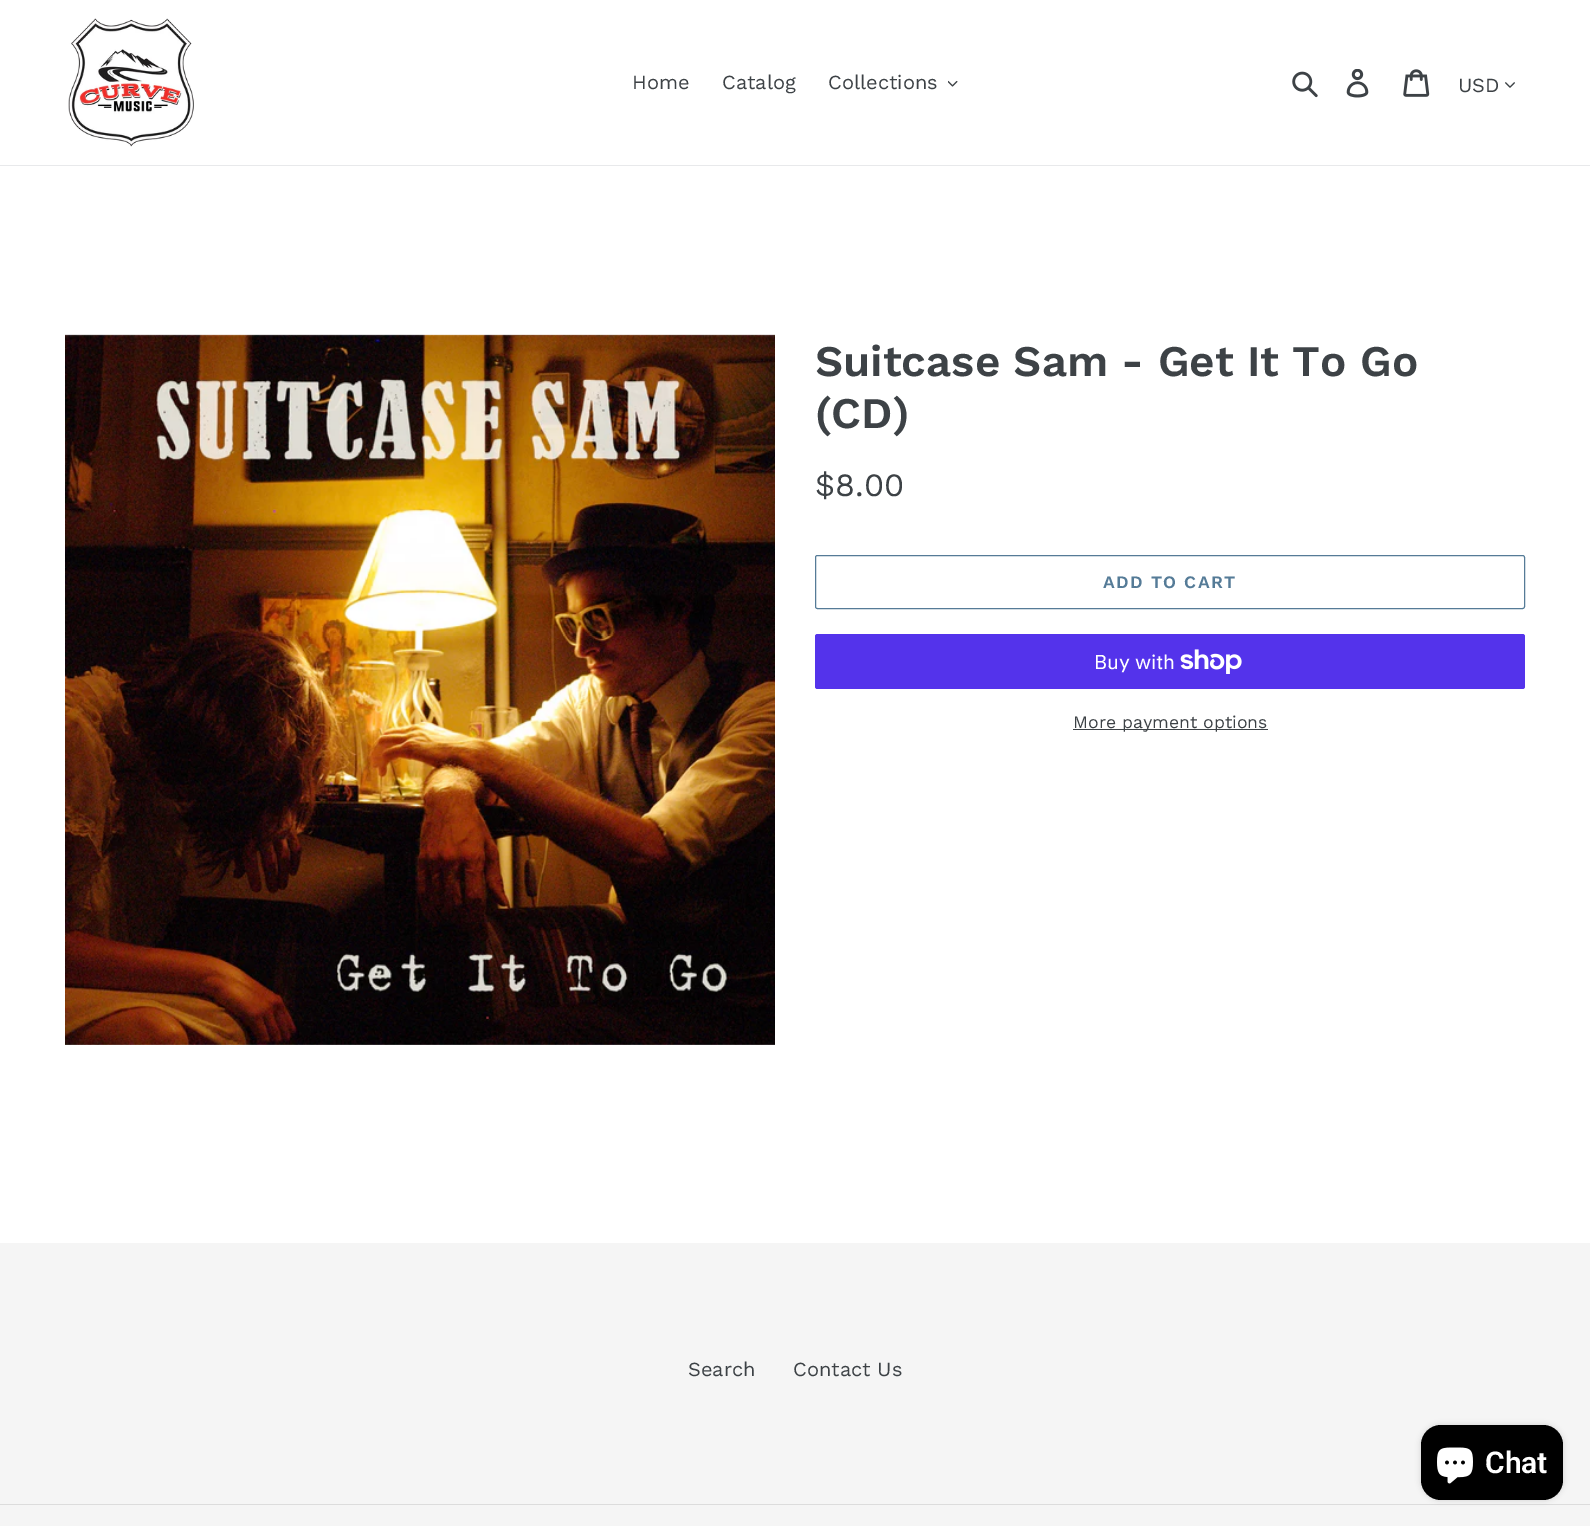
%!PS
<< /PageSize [1590 1526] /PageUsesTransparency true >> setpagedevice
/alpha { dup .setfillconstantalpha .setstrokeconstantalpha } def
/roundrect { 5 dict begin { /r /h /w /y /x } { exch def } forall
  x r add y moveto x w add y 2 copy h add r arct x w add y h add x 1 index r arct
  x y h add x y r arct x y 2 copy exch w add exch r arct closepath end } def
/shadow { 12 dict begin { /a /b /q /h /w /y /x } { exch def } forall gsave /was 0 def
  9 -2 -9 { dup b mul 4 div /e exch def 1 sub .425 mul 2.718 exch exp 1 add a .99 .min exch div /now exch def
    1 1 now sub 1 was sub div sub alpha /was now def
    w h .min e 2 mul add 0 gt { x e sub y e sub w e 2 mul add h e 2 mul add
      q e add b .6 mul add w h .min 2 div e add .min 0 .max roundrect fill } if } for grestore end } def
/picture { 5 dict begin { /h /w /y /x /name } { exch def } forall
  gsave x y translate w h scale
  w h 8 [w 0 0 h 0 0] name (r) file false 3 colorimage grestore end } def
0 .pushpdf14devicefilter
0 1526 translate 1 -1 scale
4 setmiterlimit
1 setgray
0 0 1590 1526 rectfill
0.91 0.914 0.922 setrgbcolor
0 165 1590 1 rectfill
(img1.rgb) 68 18 126 129 picture
/WorkSans-Regular [20 0 0 -20 0 0] selectfont
0.239 0.259 0.275 setrgbcolor
632 89 moveto (Home) show
722 89 moveto (Catalog) show
828 89 moveto (Collections) show
(img2.rgb) 948 80 10 7 picture
(img3.rgb) 1292 71 26 27 picture
(img4.rgb) 1346 69 23 29 picture
(img5.rgb) 1403 69 27 28 picture
1458 92 moveto (USD) show
(img6.rgb) 1505 82 10 6 picture
(img7.rgb) 65 334 710 711 picture
/WorkSans-SemiBold [43.75 0 0 -43.75 0 0] selectfont
815 376 moveto (Suitcase Sam - Get It To Go) show
815 428 moveto (\(CD\)) show
/WorkSans-Regular [32.5 0 0 -32.5 0 0] selectfont
815 496 moveto ($8.00) show
0.333 0.482 0.592 setrgbcolor
815.5 555.5 709 53 2 roundrect stroke
/WorkSans-SemiBold [17.5 0 0 -17.5 0 0] selectfont
1103 588 moveto 1.4 0 (ADD TO CART) ashow
0.329 0.2 0.922 setrgbcolor
815 634 710 55 2.5 roundrect fill
/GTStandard-Regular [20 0 0 -20 0 0] selectfont
1 setgray
1094 669 moveto (Buy with) show
(img8.rgb) 1180 649 62 25 picture
0.239 0.259 0.275 setrgbcolor
1073 729 195 1 rectfill
/WorkSans-Regular [17.5 0 0 -17.5 0 0] selectfont
1073 728 moveto (More payment options) show
0.961 setgray
0 1243 1590 283 rectfill
/WorkSans-Regular [20 0 0 -20 0 0] selectfont
0.239 0.259 0.275 setrgbcolor
688 1376 moveto (Search) show
793 1376 moveto (Contact Us) show
0.863 setgray
0 1504 1590 1 rectfill
0 setgray
1421 1425 142 75 20 3 0.15 shadow
1421 1425 142 75 20 roundrect fill
(img9.rgb) 1437 1447 36 37 picture
/Roboto-SemiBold [30 0 0 -30 0 0] selectfont
1 setgray
1485 1473 moveto (Chat) show
.poppdf14devicefilter showpage
